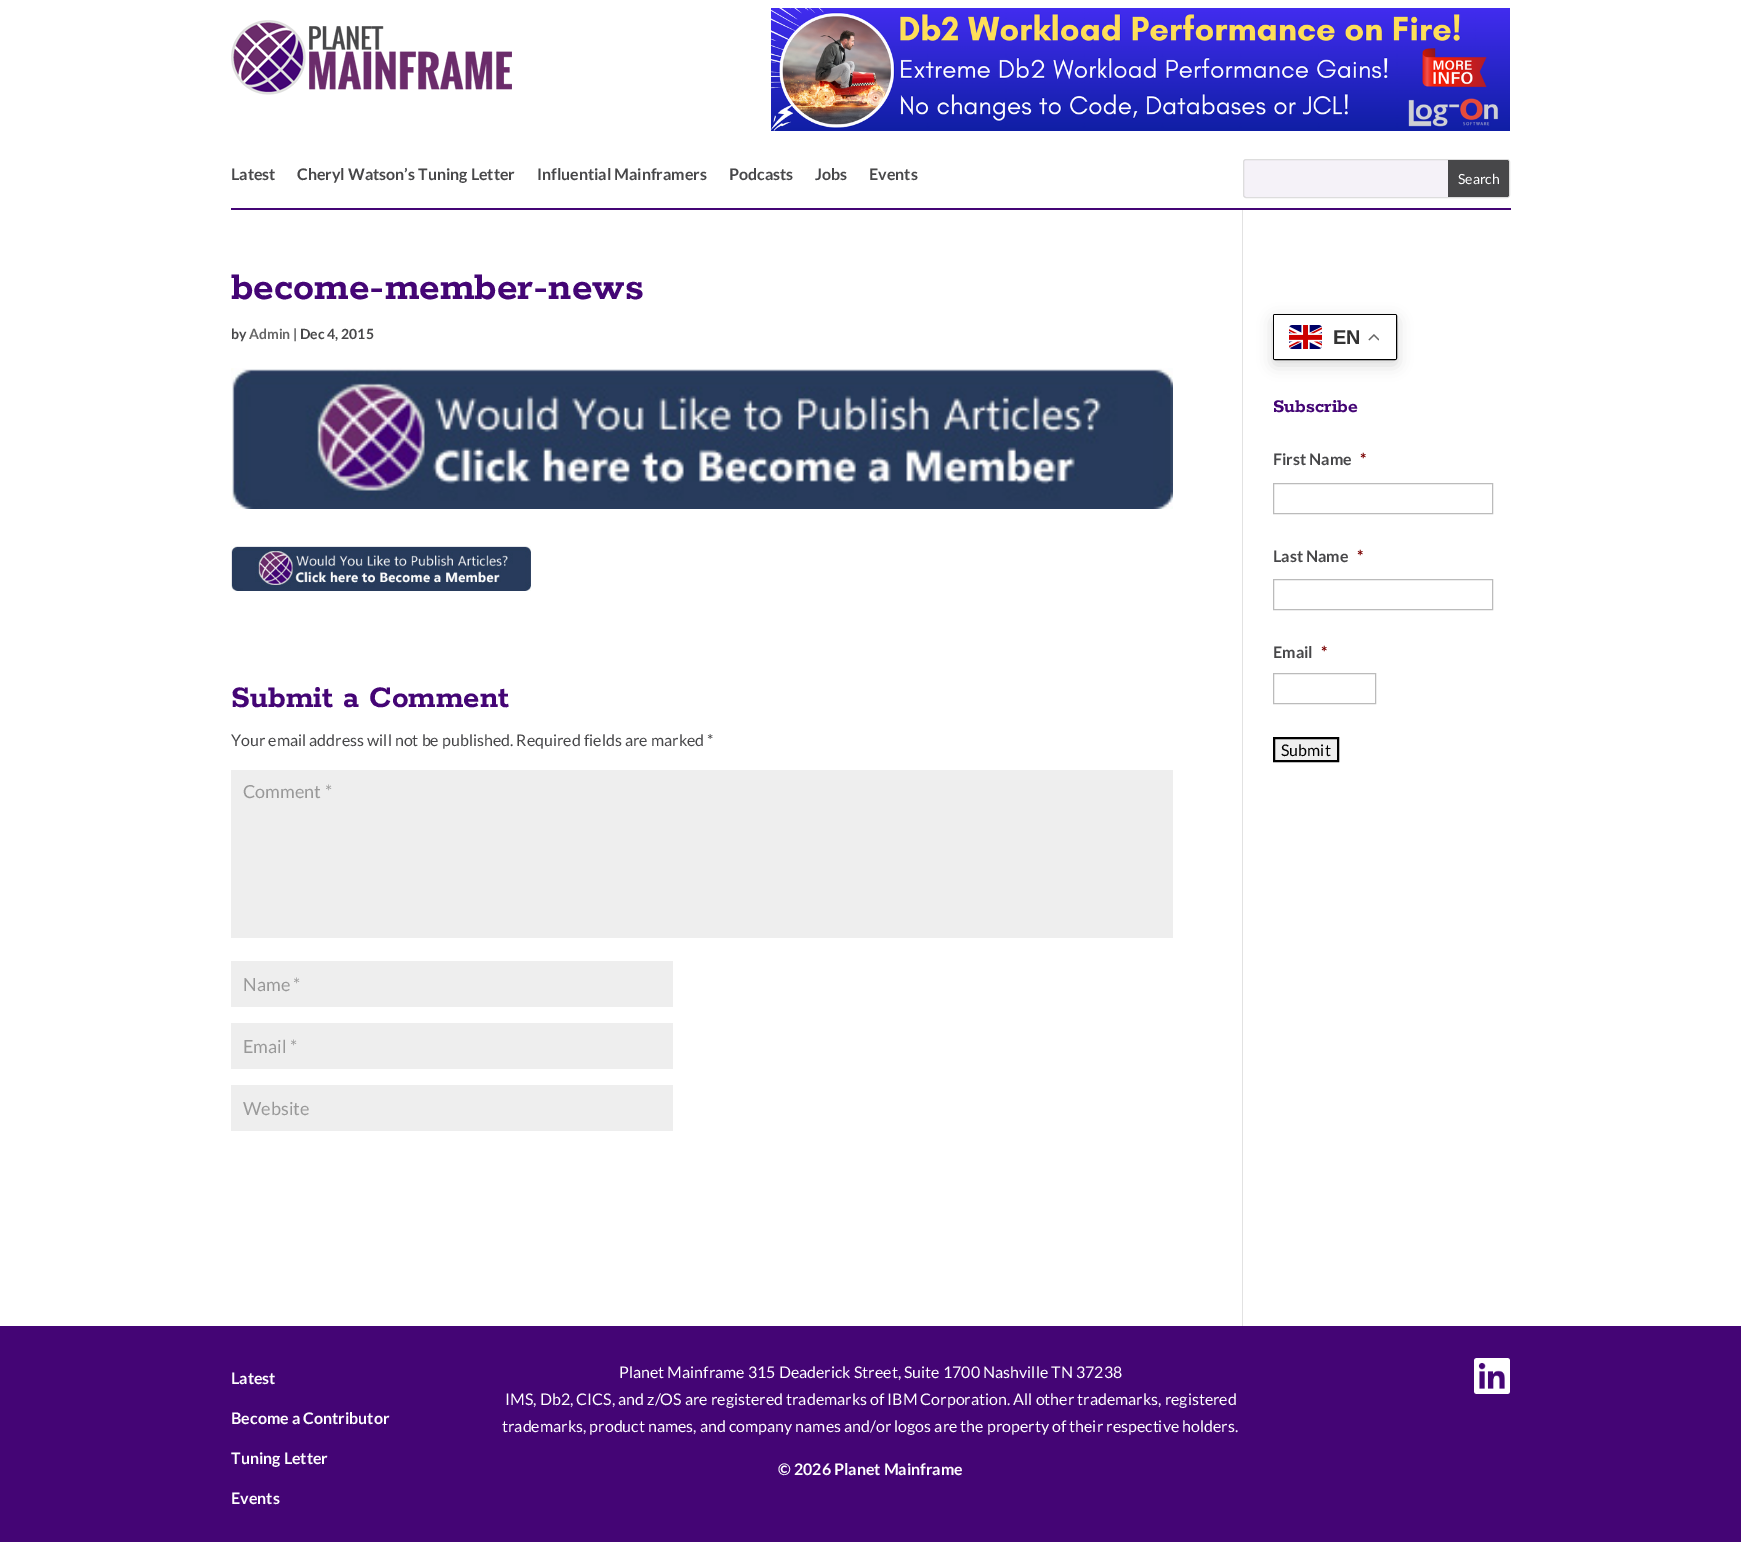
%!PS
<< /PageSize [1741 1542] /PageUsesTransparency true >> setpagedevice
/alpha { dup .setfillconstantalpha .setstrokeconstantalpha } def
/roundrect { 5 dict begin { /r /h /w /y /x } { exch def } forall
  x r add y moveto x w add y 2 copy h add r arct x w add y h add x 1 index r arct
  x y h add x y r arct x y 2 copy exch w add exch r arct closepath end } def
/shadow { 12 dict begin { /a /b /q /h /w /y /x } { exch def } forall gsave /was 0 def
  9 -2 -9 { dup b mul 4 div /e exch def 1 sub .425 mul 2.718 exch exp 1 add a .99 .min exch div /now exch def
    1 1 now sub 1 was sub div sub alpha /was now def
    w h .min e 2 mul add 0 gt { x e sub y e sub w e 2 mul add h e 2 mul add
      q e add b .6 mul add w h .min 2 div e add .min 0 .max roundrect fill } if } for grestore end } def
/picture { 5 dict begin { /h /w /y /x /name } { exch def } forall
  gsave x y translate w h scale
  w h 8 [w 0 0 h 0 0] name (r) file false 3 colorimage grestore end } def
0 .pushpdf14devicefilter
0 1542 translate 1 -1 scale
4 setmiterlimit
1 setgray
0 0 1741 1542 rectfill
(img1.rgb) 231 20 281 75 picture
(img2.rgb) 771 8 739 123 picture
0.267 0.02 0.459 setrgbcolor
231 208 1280 2 rectfill
/Lato-Bold [16 0 0 -16 0 0] selectfont
0.278 0.278 0.286 setrgbcolor
231 180 moveto (Latest) show
297 180 moveto (Cheryl Watson’s Tuning Letter) show
537 180 moveto (Influential Mainframers) show
729 180 moveto (Podcasts) show
815 180 moveto (Jobs) show
869 180 moveto (Events) show
0.867 setgray
1243.5 159.5 266 38 2.5 roundrect stroke
0.05 alpha
0.267 0.02 0.459 setrgbcolor
1244 160 204 37 rectfill
1 alpha
0.278 0.278 0.286 setrgbcolor
newpath 1448 160 moveto 1507 160 lineto 1508 160 1509 161 1509 162 curveto 1509 195 lineto 1509 196 1508 197 1507 197 curveto 1448 197 lineto closepath fill
/Lato-Regular [14 0 0 -14 0 0] selectfont
1 setgray
1458 184 moveto (Search) show
0.886 setgray
1242 210 1 1116 rectfill
/Rokkitt-Bold [42 0 0 -42 0 0] selectfont
0.267 0.02 0.459 setrgbcolor
231 299 moveto (become-member-news) show
/Lato-Bold [14 0 0 -14 0 0] selectfont
0.278 0.278 0.286 setrgbcolor
231 339 moveto (by) show
0.4 setgray
249 339 moveto (Admin) show
0.278 0.278 0.286 setrgbcolor
293 339 moveto (| Dec 4, 2015) show
(img3.rgb) 231 368 942 141 picture
(img4.rgb) 231 546 300 45 picture
/Rokkitt-Bold [33.25 0 0 -33.25 0 0] selectfont
0.267 0.02 0.459 setrgbcolor
231 707 moveto (Submit a Comment) show
/Lato-Regular [16 0 0 -16 0 0] selectfont
0.278 0.278 0.286 setrgbcolor
231 746 moveto (Your email address will not be published. Required fields are marked *) show
0.933 setgray
231 770 942 168 rectfill
/Lato-Regular [18 0 0 -18 0 0] selectfont
0.6 setgray
243 798 moveto (Comment *) show
0.933 setgray
231 961 442 46 rectfill
0.6 setgray
243 991 moveto (Name *) show
0.933 setgray
231 1023 442 46 rectfill
0.6 setgray
243 1053 moveto (Email *) show
0.933 setgray
231 1085 442 46 rectfill
0.6 setgray
243 1115 moveto (Website) show
0 setgray
1273 319 124 46 2 7.5 0.15 shadow
1273.5 314.5 123 45 1.5 roundrect stroke
1 setgray
1274 315 122 44 1 roundrect fill
(img5.rgb) 1289 325 33 24 picture
/LiberationSans-Bold [20 0 0 -20 0 0] selectfont
0.2 setgray
1333 344 moveto (EN) show
(img6.rgb) 1368 334 11 7 picture
/Rokkitt-Bold [20 0 0 -20 0 0] selectfont
0.267 0.02 0.459 setrgbcolor
1273 412 moveto (Subscribe) show
/Lato-Bold [16 0 0 -16 0 0] selectfont
0.278 0.278 0.286 setrgbcolor
1273 465 moveto (First Name) show
0.475 0 0 setrgbcolor
1360 465 moveto (*) show
0.733 setgray
1273.5 483.5 219 30 rectstroke
0.278 0.278 0.286 setrgbcolor
1273 562 moveto (Last Name) show
0.475 0 0 setrgbcolor
1357 562 moveto (*) show
0.733 setgray
1273.5 579.5 219 30 rectstroke
0.278 0.278 0.286 setrgbcolor
1273 658 moveto (Email) show
0.475 0 0 setrgbcolor
1321 658 moveto (*) show
0.733 setgray
1273.5 673.5 102 30 rectstroke
0.937 setgray
newpath 1274 738 moveto 1338 738 lineto 1338 761 lineto 1274 761 lineto closepath gsave fill grestore
0 setgray
2 setlinewidth
stroke
/Lato-Regular [16 0 0 -16 0 0] selectfont
1281 756 moveto (Submit) show
0.267 0.02 0.459 setrgbcolor
0 1326 1741 216 rectfill
/Lato-Bold [16 0 0 -16 0 0] selectfont
1 setgray
231 1384 moveto (Latest) show
231 1424 moveto (Become a Contributor) show
231 1464 moveto (Tuning Letter) show
231 1504 moveto (Events) show
/Lato-Regular [16 0 0 -16 0 0] selectfont
619 1378 moveto (Planet Mainframe 315 Deaderick Street, Suite 1700 Nashville TN 37238) show
505 1405 moveto (IMS, Db2, CICS, and z/OS are registered trademarks of IBM Corporation. All other trademarks, registered) show
502 1432 moveto (trademarks, product names, and company names and/or logos are the property of their respective holders.) show
/Lato-Bold [16 0 0 -16 0 0] selectfont
778 1475 moveto (© 2026 Planet Mainframe) show
(img7.rgb) 1474 1358 36 36 picture
.poppdf14devicefilter showpage
